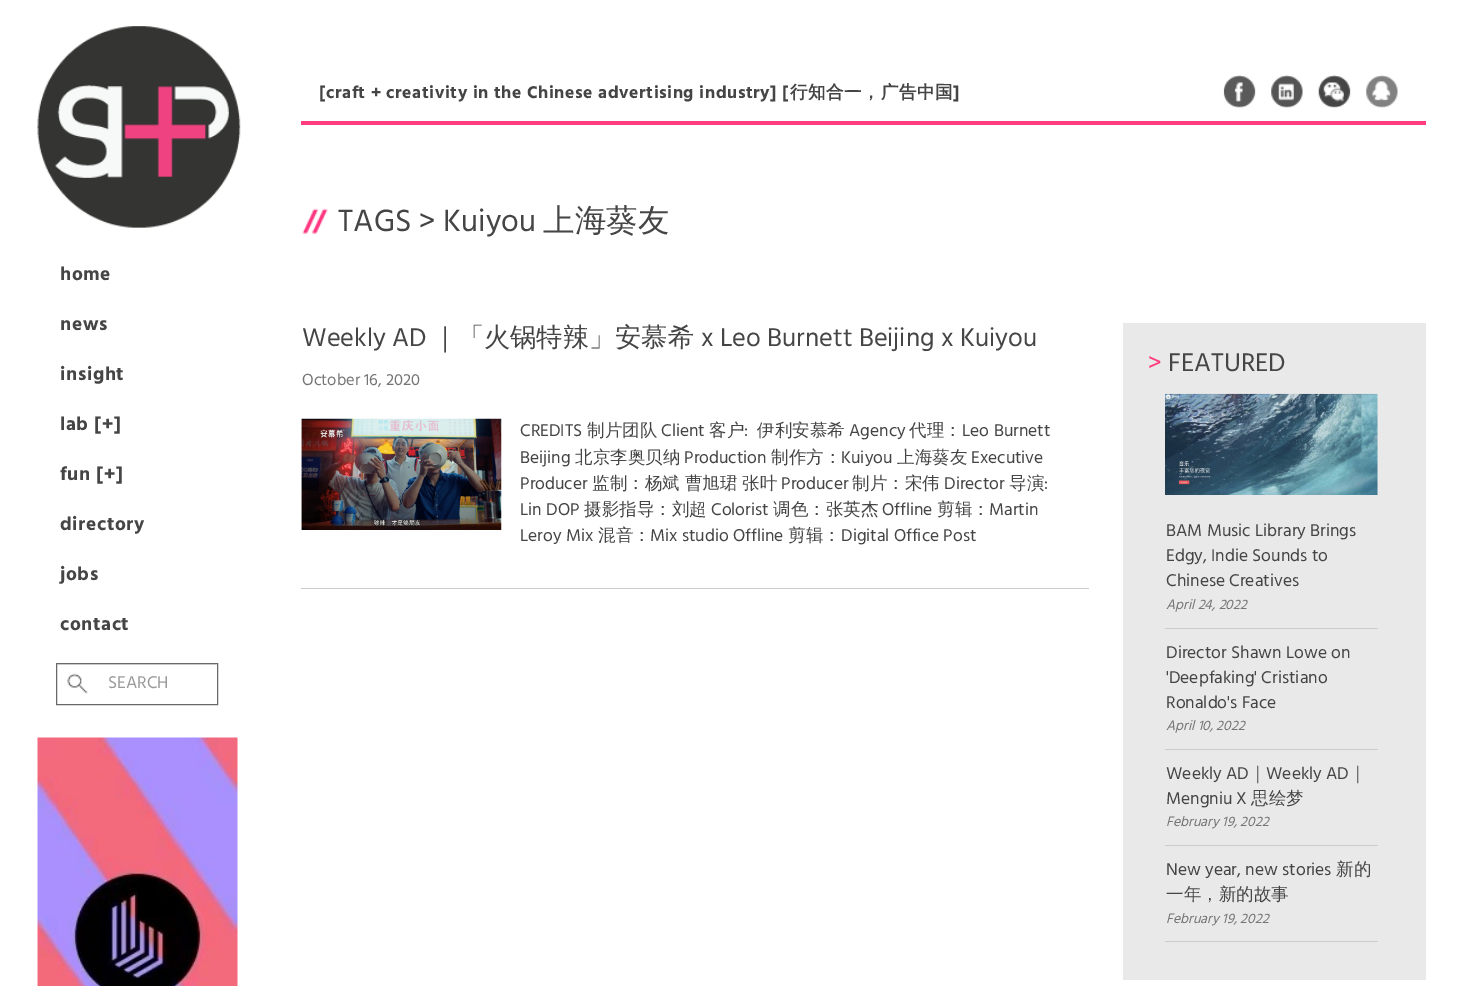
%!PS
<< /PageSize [1481 986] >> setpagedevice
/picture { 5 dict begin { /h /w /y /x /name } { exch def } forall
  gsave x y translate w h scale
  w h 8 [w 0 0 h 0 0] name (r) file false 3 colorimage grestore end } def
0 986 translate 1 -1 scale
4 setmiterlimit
1 setgray
0 0 1481 986 rectfill
(img1.rgb) 37 26 204 202 picture
/Hind-Bold [19.25 0 0 -19.25 0 0] selectfont
0.271 setgray
60 280 moveto 0.62 0 (home) ashow
60 330 moveto 0.62 0 (news) ashow
60 380 moveto 0.62 0 (insight) ashow
60 430 moveto 0.62 0 (lab [+]) ashow
60 480 moveto 0.62 0 (fun [+]) ashow
60 530 moveto 0.62 0 (directory) ashow
60 580 moveto 0.62 0 (jobs) ashow
60 630 moveto 0.62 0 (contact) ashow
(img2.rgb) 67 673 21 21 picture
0.925 setgray
58 664 158 1 rectfill
0.412 setgray
56.5 663.5 161 41 rectstroke
/Hind-Regular [17.5 0 0 -17.5 0 0] selectfont
0.6 setgray
108 688 moveto (SEARCH) show
(img3.rgb) 37 737 201 249 picture
1 0.239 0.498 setrgbcolor
301 121 1125 4 rectfill
/Hind-Bold [17.5 0 0 -17.5 0 0] selectfont
0.271 setgray
319 98 moveto 0.62 0 ([craft + creativity in the Chinese advertising industry] [) ashow
/WenQuanYiZenHei-Bold [17.5 0 0 -17.5 0 0] selectfont
790 98 moveto 0.62 0 (行知合一，广告中国) ashow
/Hind-Bold [17.5 0 0 -17.5 0 0] selectfont
953 98 moveto 0.62 0 (]) ashow
(img4.rgb) 1223 75 33 33 picture
(img5.rgb) 1271 75 32 33 picture
(img6.rgb) 1318 75 33 33 picture
(img7.rgb) 1366 75 32 33 picture
(img8.rgb) 302 208 26 26 picture
/Hind-Regular [31.5 0 0 -31.5 0 0] selectfont
338 231 moveto (TAGS > Kuiyou) show
/WenQuanYiZenHei-Medium [31.5 0 0 -31.5 0 0] selectfont
543 231 moveto (上海葵友) show
0.8 setgray
301 588 788 1 rectfill
/Hind-Regular [26.25 0 0 -26.25 0 0] selectfont
0.271 setgray
302 346 moveto (Weekly AD) show
/WenQuanYiZenHei-Medium [26.25 0 0 -26.25 0 0] selectfont
432 346 moveto (｜「火锅特辣」安慕希) show
/Hind-Regular [26.25 0 0 -26.25 0 0] selectfont
701 346 moveto (x Leo Burnett Beijing x Kuiyou) show
/Hind-Regular [16.5 0 0 -16.5 0 0] selectfont
0.459 setgray
302 385 moveto (October 16, 2020) show
(img9.rgb) 301 418 201 112 picture
/Hind-Regular [17.5 0 0 -17.5 0 0] selectfont
0.271 setgray
520 436 moveto (CREDITS) show
/WenQuanYiZenHei-Medium [17.5 0 0 -17.5 0 0] selectfont
587 436 moveto (制片团队) show
/Hind-Regular [17.5 0 0 -17.5 0 0] selectfont
661 436 moveto (Client) show
/WenQuanYiZenHei-Medium [17.5 0 0 -17.5 0 0] selectfont
709 436 moveto (客户) show
/Hind-Regular [17.5 0 0 -17.5 0 0] selectfont
744 436 moveto (:) show
/WenQuanYiZenHei-Medium [17.5 0 0 -17.5 0 0] selectfont
757 436 moveto (伊利安慕希) show
/Hind-Regular [17.5 0 0 -17.5 0 0] selectfont
849 436 moveto (Agency) show
/WenQuanYiZenHei-Medium [17.5 0 0 -17.5 0 0] selectfont
909 436 moveto (代理：) show
/Hind-Regular [17.5 0 0 -17.5 0 0] selectfont
962 436 moveto (Leo Burnett) show
520 463 moveto (Beijing) show
/WenQuanYiZenHei-Medium [17.5 0 0 -17.5 0 0] selectfont
575 463 moveto (北京李奥贝纳) show
/Hind-Regular [17.5 0 0 -17.5 0 0] selectfont
684 463 moveto (Production) show
/WenQuanYiZenHei-Medium [17.5 0 0 -17.5 0 0] selectfont
771 463 moveto (制作方：) show
/Hind-Regular [17.5 0 0 -17.5 0 0] selectfont
841 463 moveto (Kuiyou) show
/WenQuanYiZenHei-Medium [17.5 0 0 -17.5 0 0] selectfont
897 463 moveto (上海葵友) show
/Hind-Regular [17.5 0 0 -17.5 0 0] selectfont
971 463 moveto (Executive) show
520 489 moveto (Producer) show
/WenQuanYiZenHei-Medium [17.5 0 0 -17.5 0 0] selectfont
592 489 moveto (监制：杨斌 曹旭珺 张叶) show
/Hind-Regular [17.5 0 0 -17.5 0 0] selectfont
781 489 moveto (Producer) show
/WenQuanYiZenHei-Medium [17.5 0 0 -17.5 0 0] selectfont
852 489 moveto (制片：宋伟) show
/Hind-Regular [17.5 0 0 -17.5 0 0] selectfont
944 489 moveto (Director) show
/WenQuanYiZenHei-Medium [17.5 0 0 -17.5 0 0] selectfont
1009 489 moveto (导演) show
/Hind-Regular [17.5 0 0 -17.5 0 0] selectfont
1044 489 moveto (:) show
520 515 moveto (Lin DOP) show
/WenQuanYiZenHei-Medium [17.5 0 0 -17.5 0 0] selectfont
584 515 moveto (摄影指导：刘超) show
/Hind-Regular [17.5 0 0 -17.5 0 0] selectfont
711 515 moveto (Colorist) show
/WenQuanYiZenHei-Medium [17.5 0 0 -17.5 0 0] selectfont
773 515 moveto (调色：张英杰) show
/Hind-Regular [17.5 0 0 -17.5 0 0] selectfont
882 515 moveto (Offline) show
/WenQuanYiZenHei-Medium [17.5 0 0 -17.5 0 0] selectfont
937 515 moveto (剪辑：) show
/Hind-Regular [17.5 0 0 -17.5 0 0] selectfont
989 515 moveto (Martin) show
520 541 moveto (Leroy Mix) show
/WenQuanYiZenHei-Medium [17.5 0 0 -17.5 0 0] selectfont
598 541 moveto (混⾳：) show
/Hind-Regular [17.5 0 0 -17.5 0 0] selectfont
650 541 moveto (Mix studio Offline) show
/WenQuanYiZenHei-Medium [17.5 0 0 -17.5 0 0] selectfont
788 541 moveto (剪辑：) show
/Hind-Regular [17.5 0 0 -17.5 0 0] selectfont
841 541 moveto (Digital Office Post) show
0.914 setgray
1123 323 303 657 rectfill
/Hind-Regular [26.25 0 0 -26.25 0 0] selectfont
1 0.235 0.494 setrgbcolor
1148 371 moveto (>) show
0.271 setgray
1168 371 moveto (FEATURED) show
0.8 setgray
1165 628 213 1 rectfill
(img10.rgb) 1165 393 213 102 picture
/Hind-Regular [17.5 0 0 -17.5 0 0] selectfont
0.271 setgray
1166 536 moveto (BAM Music Library Brings) show
1166 561 moveto (Edgy, Indie Sounds to) show
1166 586 moveto (Chinese Creatives) show
/Hind-Italic [14 0 0 -14 0 0] selectfont
0.459 setgray
1166 609 moveto (April 24, 2022) show
0.8 setgray
1165 749 213 1 rectfill
/Hind-Regular [17.5 0 0 -17.5 0 0] selectfont
0.271 setgray
1166 658 moveto (Director Shawn Lowe on) show
1166 683 moveto ('Deepfaking' Cristiano) show
1166 708 moveto (Ronaldo's Face) show
/Hind-Italic [14 0 0 -14 0 0] selectfont
0.459 setgray
1166 730 moveto (April 10, 2022) show
0.8 setgray
1165 845 213 1 rectfill
/Hind-Regular [17.5 0 0 -17.5 0 0] selectfont
0.271 setgray
1166 779 moveto (Weekly AD) show
/WenQuanYiZenHei-Medium [17.5 0 0 -17.5 0 0] selectfont
1249 779 moveto (｜) show
/Hind-Regular [17.5 0 0 -17.5 0 0] selectfont
1266 779 moveto (Weekly AD) show
/WenQuanYiZenHei-Medium [17.5 0 0 -17.5 0 0] selectfont
1349 779 moveto (｜) show
/Hind-Regular [17.5 0 0 -17.5 0 0] selectfont
1166 804 moveto (Mengniu X) show
/WenQuanYiZenHei-Medium [17.5 0 0 -17.5 0 0] selectfont
1251 804 moveto (思绘梦) show
/Hind-Italic [14 0 0 -14 0 0] selectfont
0.459 setgray
1166 826 moveto (February 19, 2022) show
0.8 setgray
1165 941 213 1 rectfill
/Hind-Regular [17.5 0 0 -17.5 0 0] selectfont
0.271 setgray
1166 875 moveto (New year, new stories) show
/WenQuanYiZenHei-Medium [17.5 0 0 -17.5 0 0] selectfont
1336 875 moveto (新的) show
1166 900 moveto (一年，新的故事) show
/Hind-Italic [14 0 0 -14 0 0] selectfont
0.459 setgray
1166 923 moveto (February 19, 2022) show
showpage
